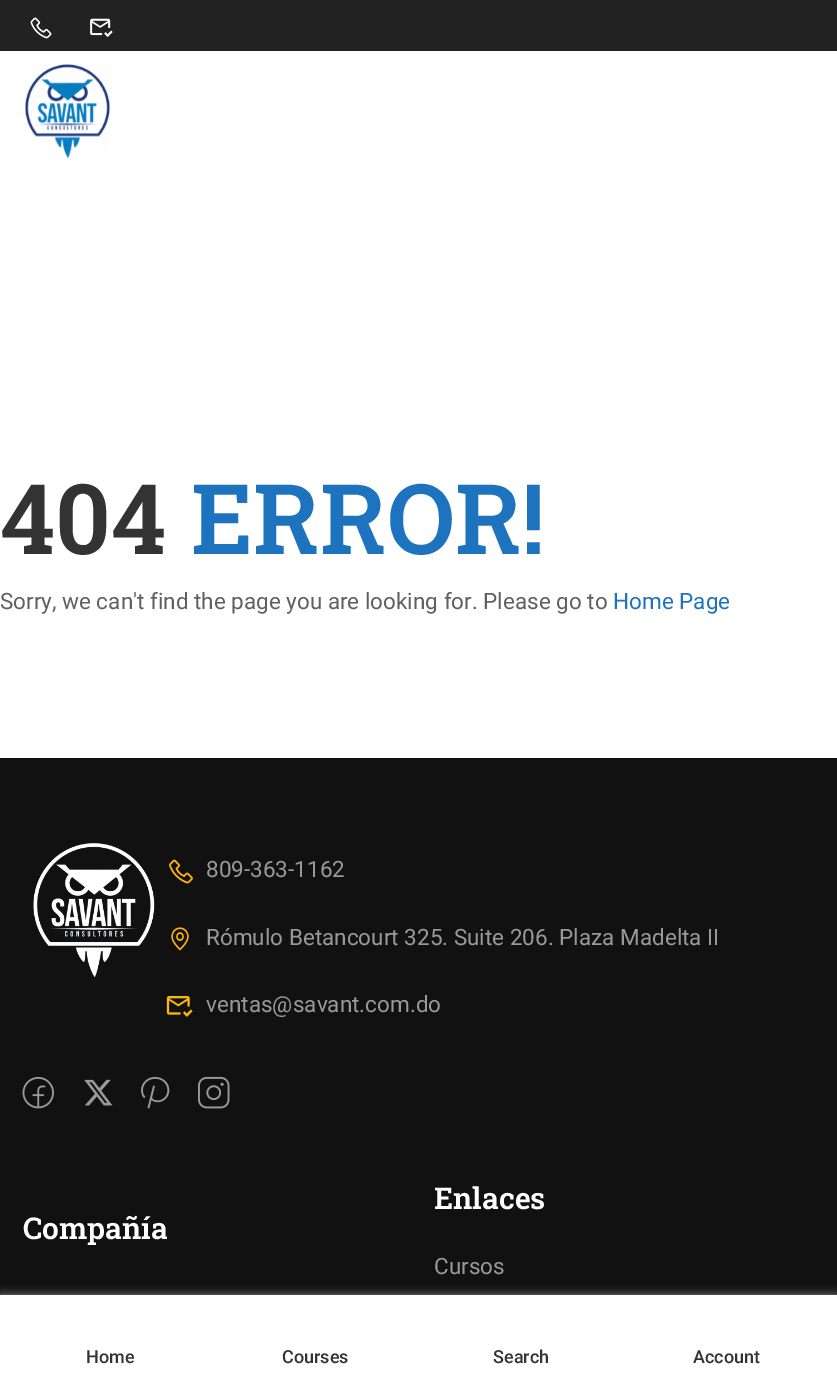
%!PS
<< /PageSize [837 1380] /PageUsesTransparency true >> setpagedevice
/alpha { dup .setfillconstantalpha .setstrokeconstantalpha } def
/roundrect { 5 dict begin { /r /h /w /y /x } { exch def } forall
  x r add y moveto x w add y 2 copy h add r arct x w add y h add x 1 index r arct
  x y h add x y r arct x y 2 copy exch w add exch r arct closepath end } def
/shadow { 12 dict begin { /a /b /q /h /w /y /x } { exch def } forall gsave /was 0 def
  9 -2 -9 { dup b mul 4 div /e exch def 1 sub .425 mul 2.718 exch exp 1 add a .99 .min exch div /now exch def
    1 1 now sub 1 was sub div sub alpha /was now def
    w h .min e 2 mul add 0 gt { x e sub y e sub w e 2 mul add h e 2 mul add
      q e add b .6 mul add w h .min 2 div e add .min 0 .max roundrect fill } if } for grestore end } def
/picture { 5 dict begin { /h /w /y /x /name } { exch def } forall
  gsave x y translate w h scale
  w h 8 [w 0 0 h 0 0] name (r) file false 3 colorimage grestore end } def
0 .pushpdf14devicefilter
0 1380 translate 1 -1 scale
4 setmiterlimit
1 setgray
0 0 837 1380 rectfill
0.133 setgray
0 0 837 51 rectfill
(img1.rgb) 30 17 22 22 picture
(img2.rgb) 90 18 23 19 picture
(img3.rgb) 25 64 85 95 picture
/RobotoSlab-SemiBold [97.5 0 0 -97.5 0 0] selectfont
0.2 setgray
0 554 moveto (404) show
0.118 0.451 0.745 setrgbcolor
191 554 moveto (ERROR!) show
/Roboto-Regular [22.5 0 0 -22.5 0 0] selectfont
0.376 setgray
0 609 moveto (Sorry, we can't find the page you are looking for. Please go to) show
0.118 0.451 0.745 setrgbcolor
613 609 moveto (Home Page) show
0.067 setgray
0 758 837 537 rectfill
(img4.rgb) 33 843 122 134 picture
(img5.rgb) 169 859 24 25 picture
0.6 setgray
206 877 moveto (809-363-1162) show
(img6.rgb) 171 927 18 24 picture
206 945 moveto (Rómulo Betancourt 325. Suite 206. Plaza Madelta II) show
(img7.rgb) 166 996 27 21 picture
206 1012 moveto (ventas@savant.com.do) show
(img8.rgb) 22 1076 32 33 picture
(img9.rgb) 84 1079 29 27 picture
(img10.rgb) 141 1076 29 33 picture
(img11.rgb) 198 1076 32 33 picture
/RobotoSlab-SemiBold [30 0 0 -30 0 0] selectfont
1 setgray
23 1239 moveto (Compañía) show
434 1209 moveto (Enlaces) show
/Roboto-Regular [22.5 0 0 -22.5 0 0] selectfont
0.6 setgray
434 1274 moveto (Cursos) show
0.863 setgray
0 1295 837 85 0 4.5 0.6 shadow
1 setgray
0 1295 837 85 rectfill
/Roboto-Medium [18 0 0 -18 0 0] selectfont
0.2 setgray
86 1363 moveto (Home) show
282 1363 moveto (Courses) show
493 1363 moveto (Search) show
693 1363 moveto (Account) show
.poppdf14devicefilter showpage
